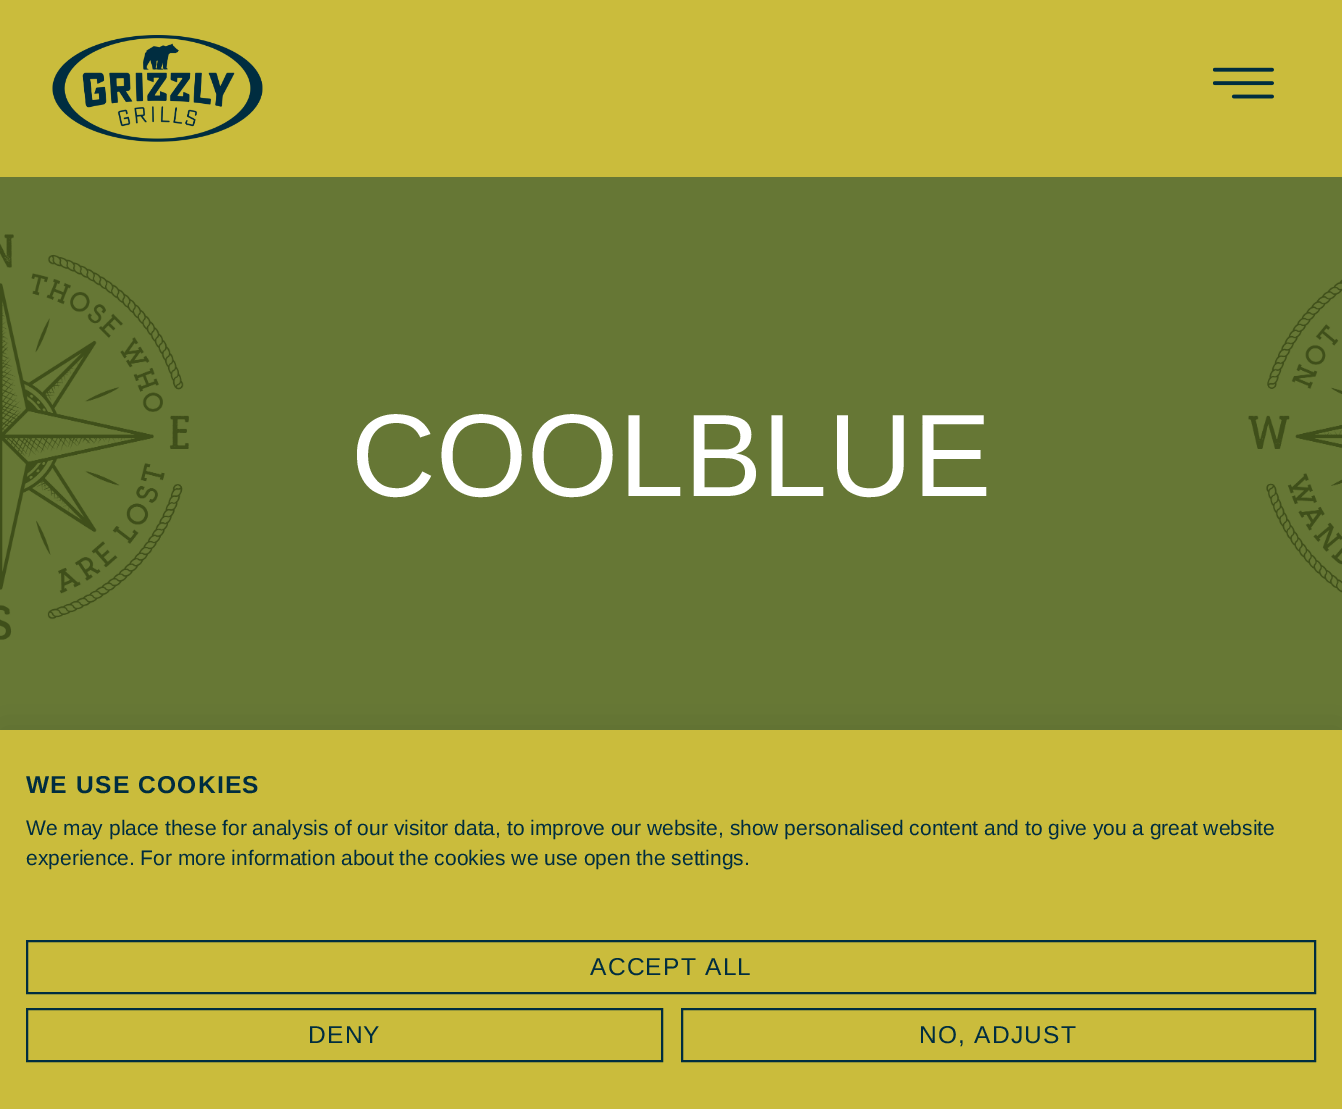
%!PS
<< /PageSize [1342 1109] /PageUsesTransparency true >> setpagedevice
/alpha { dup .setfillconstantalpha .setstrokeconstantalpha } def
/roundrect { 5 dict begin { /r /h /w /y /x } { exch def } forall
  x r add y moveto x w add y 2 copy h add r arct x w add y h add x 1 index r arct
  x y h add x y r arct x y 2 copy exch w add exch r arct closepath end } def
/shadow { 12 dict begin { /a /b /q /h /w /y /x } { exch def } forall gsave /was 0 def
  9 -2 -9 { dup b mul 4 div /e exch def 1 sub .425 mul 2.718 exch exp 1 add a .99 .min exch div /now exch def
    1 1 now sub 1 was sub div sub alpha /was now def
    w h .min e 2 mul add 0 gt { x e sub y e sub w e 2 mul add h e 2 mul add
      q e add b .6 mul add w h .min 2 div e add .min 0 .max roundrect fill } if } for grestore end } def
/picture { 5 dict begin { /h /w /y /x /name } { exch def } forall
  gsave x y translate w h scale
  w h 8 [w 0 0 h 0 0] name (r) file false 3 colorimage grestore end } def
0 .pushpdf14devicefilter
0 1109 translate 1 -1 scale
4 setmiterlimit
0.404 0.471 0.208 setrgbcolor
0 0 1342 1109 rectfill
0.792 0.737 0.235 setrgbcolor
0 0 1342 177 rectfill
(img1.rgb) 52 35 211 107 picture
(img2.rgb) 1213 67 61 32 picture
(img3.rgb) 0 177 1342 463 picture
/LiberationSans-Regular [117.5 0 0 -117.5 0 0] selectfont
1 setgray
351 496 moveto (COOLBLUE) show
0 setgray
0 730 1342 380 0 21 0.1 shadow
0.792 0.737 0.235 setrgbcolor
0 730 1342 379 rectfill
/LiberationSans-Bold [24.5 0 0 -24.5 0 0] selectfont
0 0.176 0.251 setrgbcolor
26 793 moveto 1.25 0 (WE USE COOKIES) ashow
/LiberationSans-Regular [21 0 0 -21 0 0] selectfont
26 835 moveto (We may place these for analysis of our visitor data, to improve our website, show personalised content and to give you a great website) show
26 865 moveto (experience. For more information about the cookies we use open the settings.) show
2 setlinewidth
27 941 1288 52 rectstroke
/LiberationSans-Regular [24.5 0 0 -24.5 0 0] selectfont
590 975 moveto 1.25 0 (ACCEPT ALL) ashow
27 1009 635 52 rectstroke
308 1043 moveto 1.25 0 (DENY) ashow
682 1009 633 52 rectstroke
919 1043 moveto 1.25 0 (NO, ADJUST) ashow
.poppdf14devicefilter showpage
